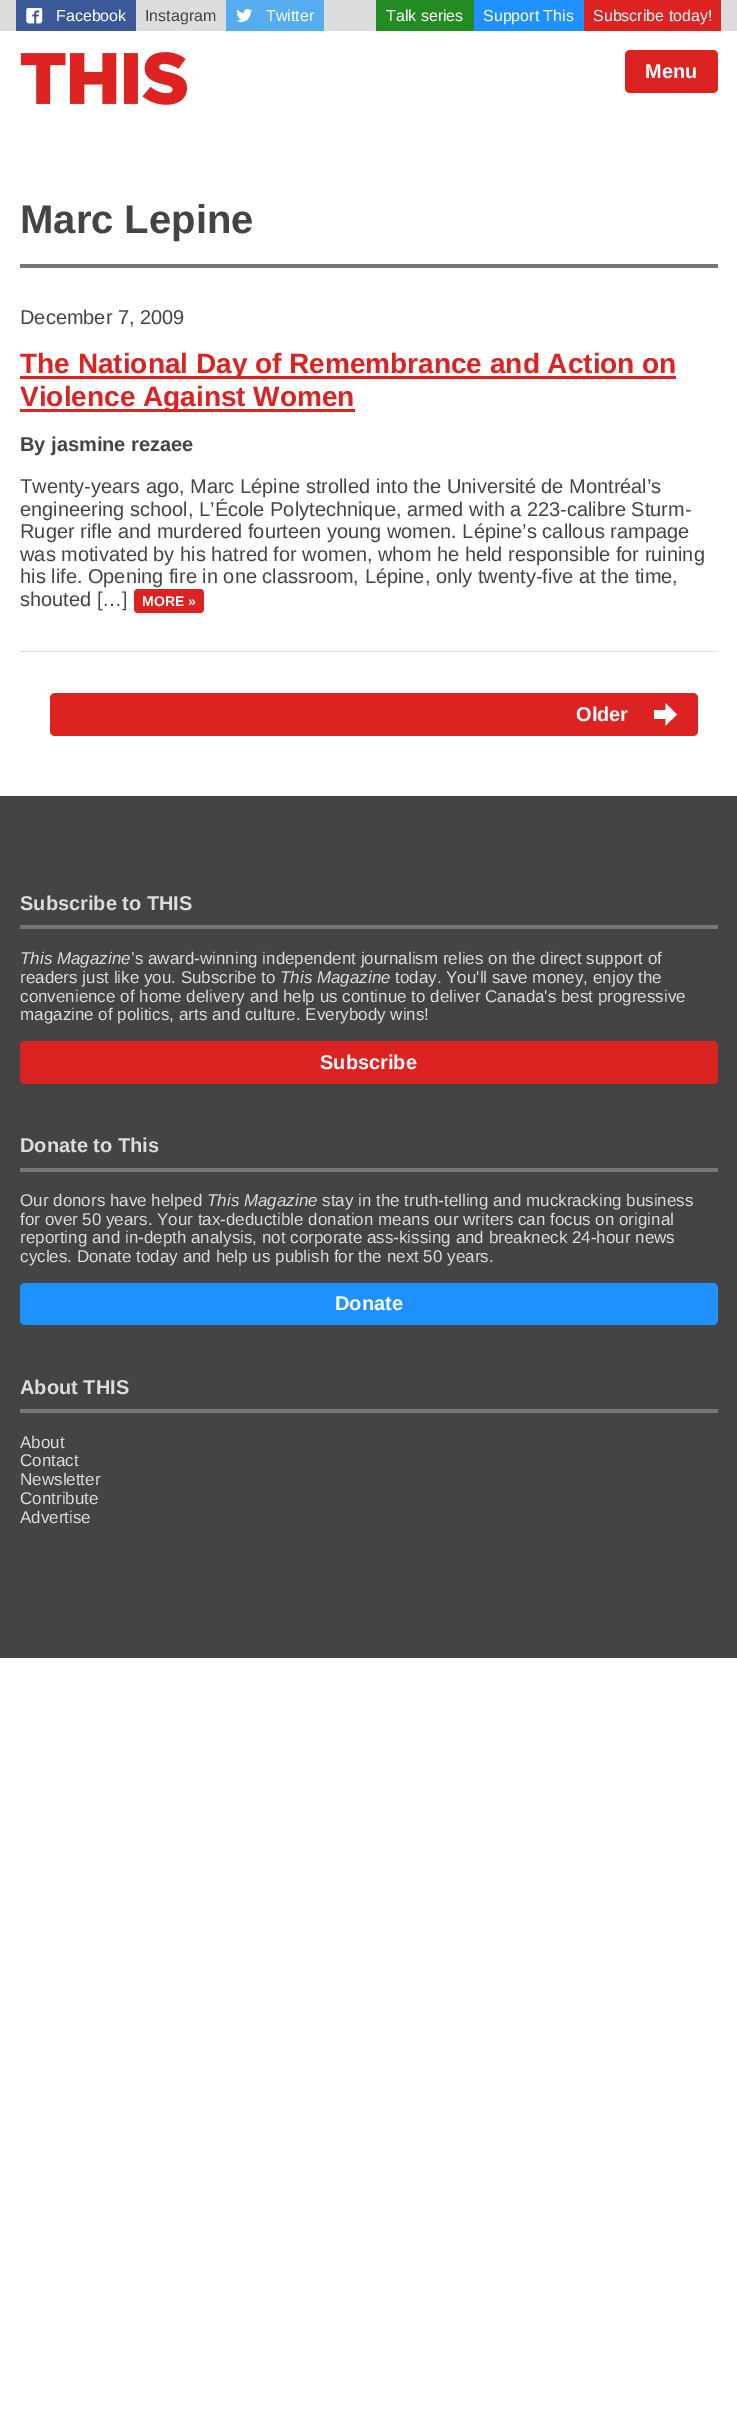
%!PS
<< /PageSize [737 2425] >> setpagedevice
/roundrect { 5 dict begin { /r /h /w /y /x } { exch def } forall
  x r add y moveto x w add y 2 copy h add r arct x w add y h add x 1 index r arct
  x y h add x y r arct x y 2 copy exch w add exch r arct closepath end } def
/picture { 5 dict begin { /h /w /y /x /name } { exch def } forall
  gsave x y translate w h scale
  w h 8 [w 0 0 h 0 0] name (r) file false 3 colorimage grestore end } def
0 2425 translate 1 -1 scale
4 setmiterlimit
1 setgray
0 0 737 2425 rectfill
0.867 setgray
0 0 737 31 rectfill
0.231 0.349 0.596 setrgbcolor
16 0 120 31 rectfill
(img1.rgb) 26 8 17 16 picture
/LiberationSans-Regular [16 0 0 -16 0 0] selectfont
1 setgray
56 21 moveto (Facebook) show
0.267 setgray
145 21 moveto (Instagram) show
0.333 0.675 0.933 setrgbcolor
226 0 98 31 rectfill
(img2.rgb) 236 9 17 13 picture
1 setgray
266 21 moveto (Twitter) show
0.133 0.545 0.133 setrgbcolor
376 0 98 31 rectfill
1 setgray
386 21 moveto (Talk series) show
0.118 0.565 1 setrgbcolor
474 0 110 31 rectfill
1 setgray
483 21 moveto (Support This) show
0.867 0.133 0.133 setrgbcolor
584 0 137 31 rectfill
1 setgray
593 21 moveto (Subscribe today!) show
(img3.rgb) 20 52 167 53 picture
0.867 0.133 0.133 setrgbcolor
625 50 93 43 5 roundrect fill
/LiberationSans-Bold [20 0 0 -20 0 0] selectfont
1 setgray
645 78 moveto (Menu) show
0.467 setgray
20 264 698 4 rectfill
/LiberationSans-Bold [40 0 0 -40 0 0] selectfont
0.267 setgray
20 233 moveto (Marc Lepine) show
0.867 setgray
20 651 698 1 rectfill
/LiberationSans-Regular [20 0 0 -20 0 0] selectfont
0.267 setgray
20 324 moveto (December 7, 2009) show
0.867 0.133 0.133 setrgbcolor
20 376 656 3 rectfill
/LiberationSans-Bold [28 0 0 -28 0 0] selectfont
20 373 moveto (The National Day of Remembrance and Action on) show
20 409 335 3 rectfill
20 406 moveto (Violence Against Women) show
/LiberationSans-Bold [20 0 0 -20 0 0] selectfont
0.267 setgray
20 451 moveto (By jasmine rezaee) show
/LiberationSans-Regular [20 0 0 -20 0 0] selectfont
20 493 moveto (Twenty-years ago, Marc Lépine strolled into the Université de Montréal’s) show
20 516 moveto (engineering school, L’École Polytechnique, armed with a 223-calibre Sturm-) show
20 538 moveto (Ruger rifle and murdered fourteen young women. Lépine’s callous rampage) show
20 561 moveto (was motivated by his hatred for women, whom he held responsible for ruining) show
20 583 moveto (his life. Opening fire in one classroom, Lépine, only twenty-five at the time,) show
20 606 moveto (shouted […]) show
0.867 0.133 0.133 setrgbcolor
134 589 70 24 4 roundrect fill
/LiberationSans-Bold [14 0 0 -14 0 0] selectfont
1 setgray
142 606 moveto (MORE ») show
0.867 0.133 0.133 setrgbcolor
50 693 648 43 5 roundrect fill
/LiberationSans-Bold [20 0 0 -20 0 0] selectfont
1 setgray
576 721 moveto (Older) show
newpath 677 714.5 moveto 665.5 703 lineto 665.5 710 lineto 654 710 lineto 654 719 lineto 665.5 719 lineto 665.5 725.5 lineto closepath fill
0.267 setgray
0 796 737 862 rectfill
0.467 setgray
20 925 698 4 rectfill
0.867 setgray
20 910 moveto (Subscribe to THIS) show
/LiberationSans-Italic [17 0 0 -17 0 0] selectfont
20 964 moveto (This Magazine) show
/LiberationSans-Regular [17 0 0 -17 0 0] selectfont
131 964 moveto (’s award-winning independent journalism relies on the direct support of) show
20 983 moveto (readers just like you. Subscribe to) show
/LiberationSans-Italic [17 0 0 -17 0 0] selectfont
280 983 moveto (This Magazine) show
/LiberationSans-Regular [17 0 0 -17 0 0] selectfont
395 983 moveto (today. You'll save money, enjoy the) show
20 1002 moveto (convenience of home delivery and help us continue to deliver Canada's best progressive) show
20 1020 moveto (magazine of politics, arts and culture. Everybody wins!) show
0.867 0.133 0.133 setrgbcolor
20 1041 698 43 5 roundrect fill
/LiberationSans-Bold [20 0 0 -20 0 0] selectfont
1 setgray
320 1069 moveto (Subscribe) show
0.467 setgray
20 1168 698 4 rectfill
0.867 setgray
20 1152 moveto (Donate to This) show
/LiberationSans-Regular [17 0 0 -17 0 0] selectfont
20 1206 moveto (Our donors have helped) show
/LiberationSans-Italic [17 0 0 -17 0 0] selectfont
207 1206 moveto (This Magazine) show
/LiberationSans-Regular [17 0 0 -17 0 0] selectfont
322 1206 moveto (stay in the truth-telling and muckracking business) show
20 1225 moveto (for over 50 years. Your tax-deductible donation means our writers can focus on original) show
20 1243 moveto (reporting and in-depth analysis, not corporate ass-kissing and breakneck 24-hour news) show
20 1262 moveto (cycles. Donate today and help us publish for the next 50 years.) show
0.118 0.565 1 setrgbcolor
20 1283 698 42 5 roundrect fill
/LiberationSans-Bold [20 0 0 -20 0 0] selectfont
1 setgray
335 1310 moveto (Donate) show
0.467 setgray
20 1409 698 4 rectfill
0.867 setgray
20 1394 moveto (About THIS) show
/LiberationSans-Regular [17 0 0 -17 0 0] selectfont
20 1448 moveto (About) show
20 1466 moveto (Contact) show
20 1485 moveto (Newsletter) show
20 1504 moveto (Contribute) show
20 1523 moveto (Advertise) show
showpage
